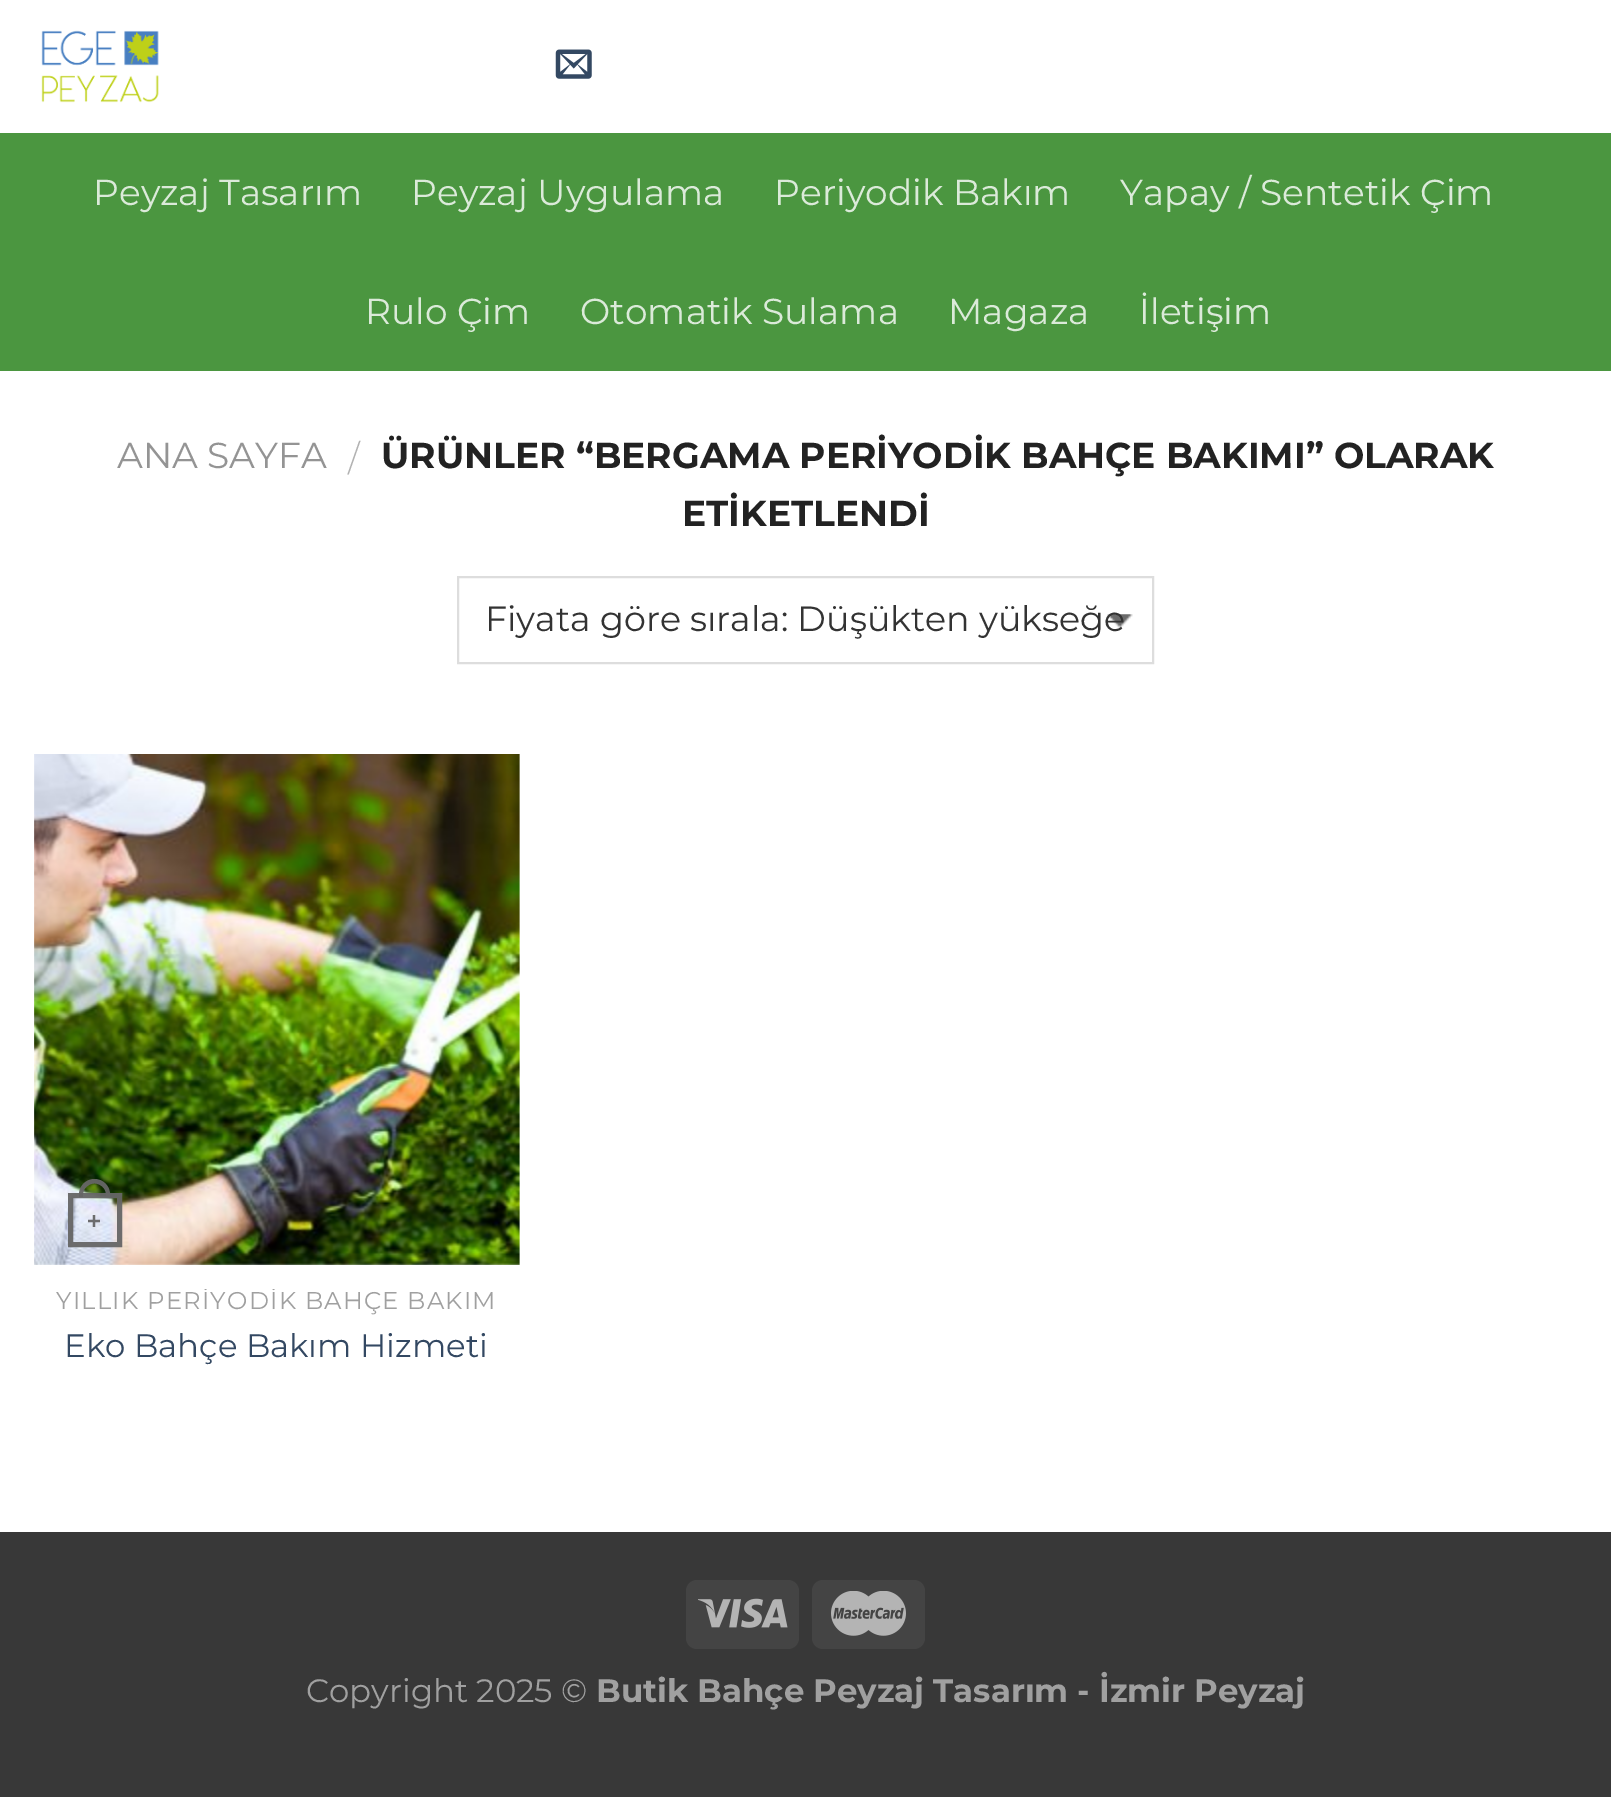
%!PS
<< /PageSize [1611 1797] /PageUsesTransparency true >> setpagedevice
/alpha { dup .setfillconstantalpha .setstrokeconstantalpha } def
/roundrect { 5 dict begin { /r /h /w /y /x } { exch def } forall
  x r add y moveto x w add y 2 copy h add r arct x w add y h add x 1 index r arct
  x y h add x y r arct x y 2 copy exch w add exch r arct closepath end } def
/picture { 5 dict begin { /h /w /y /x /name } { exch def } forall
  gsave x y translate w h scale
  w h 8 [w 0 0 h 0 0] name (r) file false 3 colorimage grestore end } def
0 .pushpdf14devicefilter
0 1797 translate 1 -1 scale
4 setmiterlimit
0.22 setgray
0 0 1611 1797 rectfill
1 setgray
0 0 1611 1532 rectfill
(img1.rgb) 41 30 118 73 picture
(img2.rgb) 555 49 37 30 picture
0.294 0.588 0.251 setrgbcolor
0 133 1611 238 rectfill
/Montserrat-Regular [36 0 0 -36 0 0] selectfont
0.859 0.918 0.851 setrgbcolor
93 205 moveto (Peyzaj Tasarım) show
411 205 moveto (Peyzaj Uygulama) show
774 205 moveto (Periyodik Bakım) show
1120 205 moveto (Yapay / Sentetik Çim) show
365 324 moveto (Rulo Çim) show
580 324 moveto (Otomatik Sulama) show
948 324 moveto (Magaza) show
1139 324 moveto (İletişim) show
0.58 setgray
117 468 moveto (ANA SAYFA) show
/Montserrat-Light [36 0 0 -36 0 0] selectfont
0.698 setgray
348 471 moveto (/) show
/Montserrat-Bold [36 0 0 -36 0 0] selectfont
0.133 setgray
381 468 moveto (ÜRÜNLER “BERGAMA PERİYODİK BAHÇE BAKIMI” OLARAK) show
682 526 moveto (ETİKETLENDİ) show
(img3.rgb) 1107 614 26 14 picture
0.867 setgray
2 setlinewidth
458 577 695 86 rectstroke
/Montserrat-Regular [34.9 0 0 -34.9 0 0] selectfont
0.2 setgray
485 631 moveto (Fiyata göre sırala: Düşükten yükseğe) show
(img4.rgb) 34 754 486 511 picture
0.95 alpha
0.4 setgray
5 setlinewidth
70.5 1195.5 49 49 rectstroke
newpath 94.5 1179 moveto 103 1179 110 1186 110 1194.5 curveto 110 1197 lineto 79 1197 lineto 79 1194.5 lineto 79 1186 86 1179 94.5 1179 curveto closepath 94.5 1183.5 moveto 100.5 1183.5 106 1188.5 106 1194.5 curveto 106 1197 lineto 83 1197 lineto 83 1194.5 lineto 83 1188.5 88.5 1183.5 94.5 1183.5 curveto closepath eofill
/LiberationSans-Bold [24 0 0 -24 0 0] selectfont
1 alpha
0.424 0.424 0.427 setrgbcolor
87 1229 moveto (+) show
gsave
56 1289 441 30 rectclip
/Montserrat-Regular [24.25 0 0 -24.25 0 0] selectfont
0.627 setgray
56 1309 moveto 1.25 0 (YILLIK PERİYODİK BAHÇE BAKIM) ashow
grestore
/Montserrat-Regular [32.4 0 0 -32.4 0 0] selectfont
0.2 0.282 0.384 setrgbcolor
64 1357 moveto (Eko Bahçe Bakım Hizmeti) show
0.267 setgray
686 1580 113 69 11 roundrect fill
(img5.rgb) 698 1598 90 30 picture
812 1580 113 69 11 roundrect fill
(img6.rgb) 831 1591 75 45 picture
0.627 setgray
306 1702 moveto (Copyright 2025 ©) show
/Montserrat-Bold [32.4 0 0 -32.4 0 0] selectfont
596 1702 moveto (Butik Bahçe Peyzaj Tasarım - İzmir Peyzaj) show
.poppdf14devicefilter showpage
